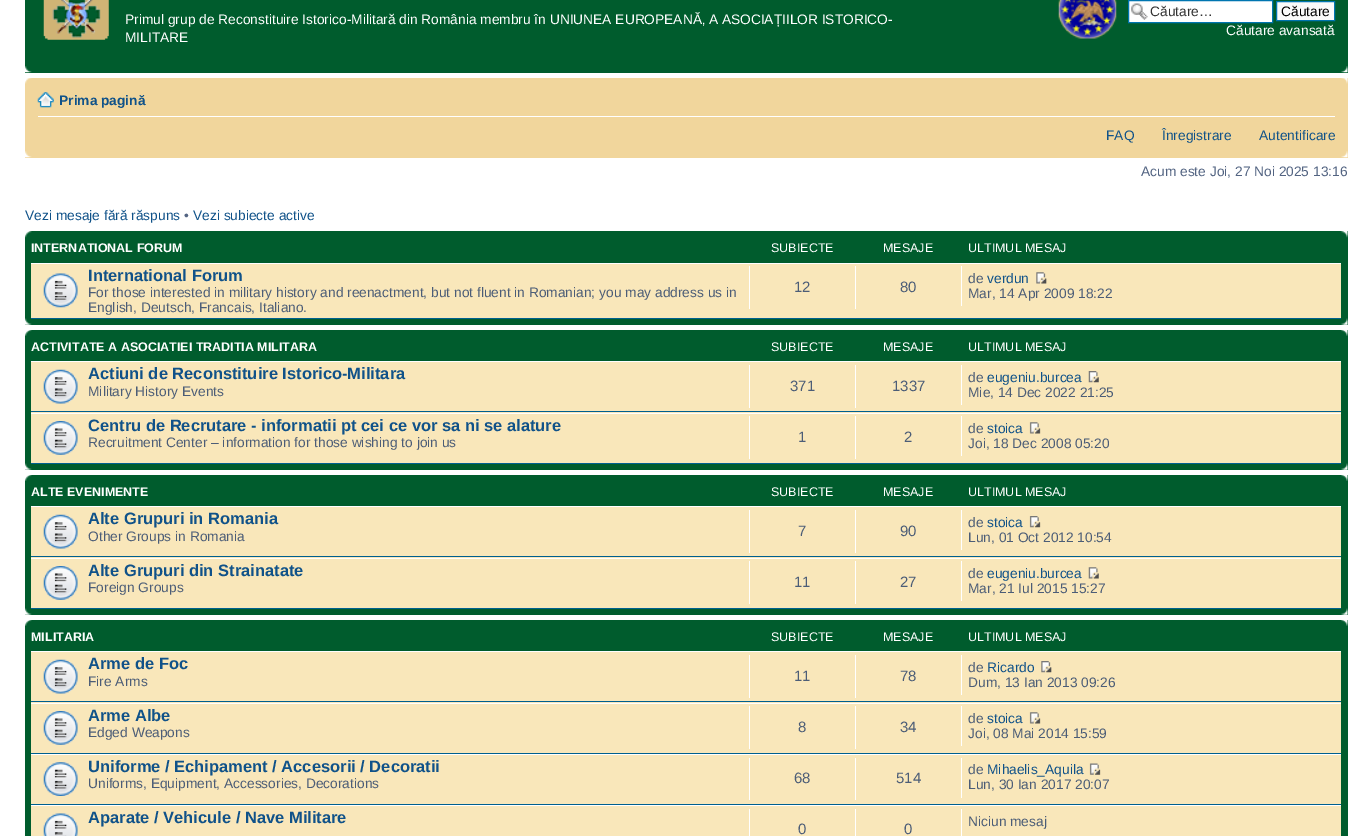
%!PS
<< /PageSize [1372 836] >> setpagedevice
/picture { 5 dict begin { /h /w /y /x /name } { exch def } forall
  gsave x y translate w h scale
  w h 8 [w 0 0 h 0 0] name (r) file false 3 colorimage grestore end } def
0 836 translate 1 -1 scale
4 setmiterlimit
1 setgray
0 0 1372 836 rectfill
0 0.361 0.176 setrgbcolor
25 0 1323 73 rectfill
(img1.rgb) 43 0 66 40 picture
/LiberationSans-Regular [13.75 0 0 -13.75 0 0] selectfont
1 setgray
125 24 moveto (Primul grup de Reconstituire Istorico-Militară din România membru în UNIUNEA EUROPEANĂ‚ A ASOCIAȚIILOR ISTORICO-) show
125 42 moveto (MILITARE) show
(img2.rgb) 1058 0 59 39 picture
1129 1 143 21 rectfill
(img3.rgb) 1131 3 17 17 picture
0 0.459 0.69 setrgbcolor
1128.5 0.5 144 22 rectstroke
0.2 setgray
1150 16 moveto (Căutare…) show
0.98 setgray
newpath 1276.5 1.5 moveto 1334.5 1.5 lineto 1334.5 20.5 lineto 1276.5 20.5 lineto closepath gsave fill grestore
0 0.459 0.69 setrgbcolor
stroke
0 setgray
1281 16 moveto (Căutare) show
1 setgray
1226 35 moveto (Căutare avansată) show
(img4.rgb) 25 66 7 7 picture
(img5.rgb) 1341 66 7 7 picture
0.945 0.839 0.612 setrgbcolor
25 78 1323 80 rectfill
(img6.rgb) 25 78 7 6 picture
(img7.rgb) 1341 78 7 6 picture
1 setgray
38 116 1297 1 rectfill
(img8.rgb) 37 92 17 16 picture
/LiberationSans-Bold [13.75 0 0 -13.75 0 0] selectfont
0.063 0.322 0.537 setrgbcolor
59 105 moveto (Prima pagină) show
/LiberationSans-Regular [13.75 0 0 -13.75 0 0] selectfont
1106 140 moveto (FAQ) show
1162 140 moveto (Înregistrare) show
1259 140 moveto (Autentificare) show
(img9.rgb) 25 151 7 7 picture
(img10.rgb) 1341 151 7 7 picture
0.325 0.392 0.51 setrgbcolor
1141 176 moveto (Acum este Joi, 27 Noi 2025 13:16) show
0.063 0.322 0.537 setrgbcolor
25 220 moveto (Vezi mesaje fără răspuns) show
0.325 0.392 0.51 setrgbcolor
184 220 moveto (•) show
0.063 0.322 0.537 setrgbcolor
193 220 moveto (Vezi subiecte active) show
0 0.361 0.176 setrgbcolor
25 231 1323 94 rectfill
(img11.rgb) 25 231 7 7 picture
(img12.rgb) 1340 231 8 7 picture
/LiberationSans-Bold [12.5 0 0 -12.5 0 0] selectfont
1 setgray
31 252 moveto (INTERNATIONAL FORUM) show
/LiberationSans-Regular [12.5 0 0 -12.5 0 0] selectfont
771 252 moveto (SUBIECTE) show
883 252 moveto (MESAJE) show
968 252 moveto (ULTIMUL MESAJ) show
0.976 0.906 0.729 setrgbcolor
31 264 1310 54 rectfill
1 setgray
31 263 1310 1 rectfill
0 0.376 0.561 setrgbcolor
31 318 1310 1 rectfill
(img13.rgb) 43 273 35 35 picture
/LiberationSans-Bold [16.5 0 0 -16.5 0 0] selectfont
0.063 0.322 0.537 setrgbcolor
88 281 moveto (International Forum) show
/LiberationSans-Regular [13.75 0 0 -13.75 0 0] selectfont
0.298 0.365 0.467 setrgbcolor
88 297 moveto (For those interested in military history and reenactment, but not fluent in Romanian; you may address us in) show
88 312 moveto (English, Deutsch, Francais, Italiano.) show
1 setgray
749 266 1 43 rectfill
/LiberationSans-Regular [15 0 0 -15 0 0] selectfont
0.298 0.365 0.467 setrgbcolor
794 292 moveto (12) show
1 setgray
855 266 1 43 rectfill
0.298 0.365 0.467 setrgbcolor
900 292 moveto (80) show
1 setgray
961 266 1 40 rectfill
/LiberationSans-Regular [13.75 0 0 -13.75 0 0] selectfont
0.298 0.365 0.467 setrgbcolor
968 283 moveto (de) show
0.063 0.322 0.537 setrgbcolor
987 283 moveto (verdun) show
(img14.rgb) 1036 272 11 12 picture
0.298 0.365 0.467 setrgbcolor
968 298 moveto (Mar, 14 Apr 2009 18:22) show
(img15.rgb) 25 318 7 7 picture
(img16.rgb) 1341 318 7 7 picture
0 0.361 0.176 setrgbcolor
25 330 1323 140 rectfill
(img17.rgb) 25 330 7 6 picture
(img18.rgb) 1341 330 7 6 picture
/LiberationSans-Bold [12.5 0 0 -12.5 0 0] selectfont
1 setgray
31 351 moveto (ACTIVITATE A ASOCIATIEI TRADITIA MILITARA) show
/LiberationSans-Regular [12.5 0 0 -12.5 0 0] selectfont
771 351 moveto (SUBIECTE) show
883 351 moveto (MESAJE) show
968 351 moveto (ULTIMUL MESAJ) show
0.976 0.906 0.729 setrgbcolor
31 362 1310 101 rectfill
1 setgray
31 361 1310 1 rectfill
0 0.376 0.561 setrgbcolor
31 411 1310 1 rectfill
(img19.rgb) 43 369 35 35 picture
/LiberationSans-Bold [16.5 0 0 -16.5 0 0] selectfont
0.063 0.322 0.537 setrgbcolor
88 379 moveto (Actiuni de Reconstituire Istorico-Militara) show
/LiberationSans-Regular [13.75 0 0 -13.75 0 0] selectfont
0.298 0.365 0.467 setrgbcolor
88 396 moveto (Military History Events) show
1 setgray
749 365 1 43 rectfill
/LiberationSans-Regular [15 0 0 -15 0 0] selectfont
0.298 0.365 0.467 setrgbcolor
790 391 moveto (371) show
1 setgray
855 365 1 43 rectfill
0.298 0.365 0.467 setrgbcolor
892 391 moveto (1337) show
1 setgray
961 365 1 40 rectfill
/LiberationSans-Regular [13.75 0 0 -13.75 0 0] selectfont
0.298 0.365 0.467 setrgbcolor
968 382 moveto (de) show
0.063 0.322 0.537 setrgbcolor
987 382 moveto (eugeniu.burcea) show
(img20.rgb) 1088 371 11 12 picture
0.298 0.365 0.467 setrgbcolor
968 397 moveto (Mie, 14 Dec 2022 21:25) show
1 setgray
31 413 1310 1 rectfill
0 0.376 0.561 setrgbcolor
31 463 1310 1 rectfill
(img21.rgb) 43 421 35 34 picture
/LiberationSans-Bold [16.5 0 0 -16.5 0 0] selectfont
0.063 0.322 0.537 setrgbcolor
88 431 moveto (Centru de Recrutare - informatii pt cei ce vor sa ni se alature) show
/LiberationSans-Regular [13.75 0 0 -13.75 0 0] selectfont
0.298 0.365 0.467 setrgbcolor
88 447 moveto (Recruitment Center – information for those wishing to join us) show
1 setgray
749 416 1 43 rectfill
/LiberationSans-Regular [15 0 0 -15 0 0] selectfont
0.298 0.365 0.467 setrgbcolor
798 442 moveto (1) show
1 setgray
855 416 1 43 rectfill
0.298 0.365 0.467 setrgbcolor
904 442 moveto (2) show
1 setgray
961 416 1 40 rectfill
/LiberationSans-Regular [13.75 0 0 -13.75 0 0] selectfont
0.298 0.365 0.467 setrgbcolor
968 433 moveto (de) show
0.063 0.322 0.537 setrgbcolor
987 433 moveto (stoica) show
(img22.rgb) 1029 422 12 12 picture
0.298 0.365 0.467 setrgbcolor
968 448 moveto (Joi, 18 Dec 2008 05:20) show
(img15.rgb) 25 463 7 7 picture
(img16.rgb) 1341 463 7 7 picture
0 0.361 0.176 setrgbcolor
25 475 1323 140 rectfill
(img17.rgb) 25 475 7 6 picture
(img18.rgb) 1341 475 7 6 picture
/LiberationSans-Bold [12.5 0 0 -12.5 0 0] selectfont
1 setgray
31 496 moveto (ALTE EVENIMENTE) show
/LiberationSans-Regular [12.5 0 0 -12.5 0 0] selectfont
771 496 moveto (SUBIECTE) show
883 496 moveto (MESAJE) show
968 496 moveto (ULTIMUL MESAJ) show
0.976 0.906 0.729 setrgbcolor
31 507 1310 101 rectfill
1 setgray
31 506 1310 1 rectfill
0 0.376 0.561 setrgbcolor
31 556 1310 1 rectfill
(img23.rgb) 43 514 35 35 picture
/LiberationSans-Bold [16.5 0 0 -16.5 0 0] selectfont
0.063 0.322 0.537 setrgbcolor
88 524 moveto (Alte Grupuri in Romania) show
/LiberationSans-Regular [13.75 0 0 -13.75 0 0] selectfont
0.298 0.365 0.467 setrgbcolor
88 541 moveto (Other Groups in Romania) show
1 setgray
749 510 1 43 rectfill
/LiberationSans-Regular [15 0 0 -15 0 0] selectfont
0.298 0.365 0.467 setrgbcolor
798 536 moveto (7) show
1 setgray
855 510 1 43 rectfill
0.298 0.365 0.467 setrgbcolor
900 536 moveto (90) show
1 setgray
961 510 1 40 rectfill
/LiberationSans-Regular [13.75 0 0 -13.75 0 0] selectfont
0.298 0.365 0.467 setrgbcolor
968 527 moveto (de) show
0.063 0.322 0.537 setrgbcolor
987 527 moveto (stoica) show
(img24.rgb) 1029 516 12 12 picture
0.298 0.365 0.467 setrgbcolor
968 542 moveto (Lun, 01 Oct 2012 10:54) show
1 setgray
31 558 1310 1 rectfill
0 0.376 0.561 setrgbcolor
31 608 1310 1 rectfill
(img21.rgb) 43 566 35 34 picture
/LiberationSans-Bold [16.5 0 0 -16.5 0 0] selectfont
0.063 0.322 0.537 setrgbcolor
88 576 moveto (Alte Grupuri din Strainatate) show
/LiberationSans-Regular [13.75 0 0 -13.75 0 0] selectfont
0.298 0.365 0.467 setrgbcolor
88 592 moveto (Foreign Groups) show
1 setgray
749 561 1 43 rectfill
/LiberationSans-Regular [15 0 0 -15 0 0] selectfont
0.298 0.365 0.467 setrgbcolor
794 587 moveto (11) show
1 setgray
855 561 1 43 rectfill
0.298 0.365 0.467 setrgbcolor
900 587 moveto (27) show
1 setgray
961 561 1 40 rectfill
/LiberationSans-Regular [13.75 0 0 -13.75 0 0] selectfont
0.298 0.365 0.467 setrgbcolor
968 578 moveto (de) show
0.063 0.322 0.537 setrgbcolor
987 578 moveto (eugeniu.burcea) show
(img25.rgb) 1088 567 11 12 picture
0.298 0.365 0.467 setrgbcolor
968 593 moveto (Mar, 21 Iul 2015 15:27) show
(img15.rgb) 25 608 7 7 picture
(img16.rgb) 1341 608 7 7 picture
0 0.361 0.176 setrgbcolor
25 620 1323 216 rectfill
(img17.rgb) 25 620 7 6 picture
(img18.rgb) 1341 620 7 6 picture
/LiberationSans-Bold [12.5 0 0 -12.5 0 0] selectfont
1 setgray
31 641 moveto (MILITARIA) show
/LiberationSans-Regular [12.5 0 0 -12.5 0 0] selectfont
771 641 moveto (SUBIECTE) show
883 641 moveto (MESAJE) show
968 641 moveto (ULTIMUL MESAJ) show
0.976 0.906 0.729 setrgbcolor
31 652 1310 184 rectfill
1 setgray
31 651 1310 1 rectfill
0 0.376 0.561 setrgbcolor
31 701 1310 1 rectfill
(img19.rgb) 43 659 35 35 picture
/LiberationSans-Bold [16.5 0 0 -16.5 0 0] selectfont
0.063 0.322 0.537 setrgbcolor
88 669 moveto (Arme de Foc) show
/LiberationSans-Regular [13.75 0 0 -13.75 0 0] selectfont
0.298 0.365 0.467 setrgbcolor
88 686 moveto (Fire Arms) show
1 setgray
749 655 1 43 rectfill
/LiberationSans-Regular [15 0 0 -15 0 0] selectfont
0.298 0.365 0.467 setrgbcolor
794 681 moveto (11) show
1 setgray
855 655 1 43 rectfill
0.298 0.365 0.467 setrgbcolor
900 681 moveto (78) show
1 setgray
961 655 1 40 rectfill
/LiberationSans-Regular [13.75 0 0 -13.75 0 0] selectfont
0.298 0.365 0.467 setrgbcolor
968 672 moveto (de) show
0.063 0.322 0.537 setrgbcolor
987 672 moveto (Ricardo) show
(img26.rgb) 1041 661 11 12 picture
0.298 0.365 0.467 setrgbcolor
968 687 moveto (Dum, 13 Ian 2013 09:26) show
1 setgray
31 703 1310 1 rectfill
0 0.376 0.561 setrgbcolor
31 753 1310 1 rectfill
(img21.rgb) 43 711 35 34 picture
/LiberationSans-Bold [16.5 0 0 -16.5 0 0] selectfont
0.063 0.322 0.537 setrgbcolor
88 721 moveto (Arme Albe) show
/LiberationSans-Regular [13.75 0 0 -13.75 0 0] selectfont
0.298 0.365 0.467 setrgbcolor
88 737 moveto (Edged Weapons) show
1 setgray
749 706 1 43 rectfill
/LiberationSans-Regular [15 0 0 -15 0 0] selectfont
0.298 0.365 0.467 setrgbcolor
798 732 moveto (8) show
1 setgray
855 706 1 43 rectfill
0.298 0.365 0.467 setrgbcolor
900 732 moveto (34) show
1 setgray
961 706 1 40 rectfill
/LiberationSans-Regular [13.75 0 0 -13.75 0 0] selectfont
0.298 0.365 0.467 setrgbcolor
968 723 moveto (de) show
0.063 0.322 0.537 setrgbcolor
987 723 moveto (stoica) show
(img22.rgb) 1029 712 12 12 picture
0.298 0.365 0.467 setrgbcolor
968 738 moveto (Joi, 08 Mai 2014 15:59) show
1 setgray
31 754 1310 1 rectfill
0 0.376 0.561 setrgbcolor
31 804 1310 1 rectfill
(img27.rgb) 43 762 35 34 picture
/LiberationSans-Bold [16.5 0 0 -16.5 0 0] selectfont
0.063 0.322 0.537 setrgbcolor
88 772 moveto (Uniforme / Echipament / Accesorii / Decoratii) show
/LiberationSans-Regular [13.75 0 0 -13.75 0 0] selectfont
0.298 0.365 0.467 setrgbcolor
88 788 moveto (Uniforms, Equipment, Accessories, Decorations) show
1 setgray
749 758 1 42 rectfill
/LiberationSans-Regular [15 0 0 -15 0 0] selectfont
0.298 0.365 0.467 setrgbcolor
794 783 moveto (68) show
1 setgray
855 758 1 42 rectfill
0.298 0.365 0.467 setrgbcolor
896 783 moveto (514) show
1 setgray
961 758 1 40 rectfill
/LiberationSans-Regular [13.75 0 0 -13.75 0 0] selectfont
0.298 0.365 0.467 setrgbcolor
968 774 moveto (de) show
0.063 0.322 0.537 setrgbcolor
987 774 moveto (Mihaelis_Aquila) show
(img28.rgb) 1089 763 12 12 picture
0.298 0.365 0.467 setrgbcolor
968 789 moveto (Lun, 30 Ian 2017 20:07) show
1 setgray
31 805 1310 1 rectfill
(img29.rgb) 43 813 35 23 picture
/LiberationSans-Bold [16.5 0 0 -16.5 0 0] selectfont
0.063 0.322 0.537 setrgbcolor
88 823 moveto (Aparate / Vehicule / Nave Militare) show
1 setgray
749 809 1 27 rectfill
/LiberationSans-Regular [15 0 0 -15 0 0] selectfont
0.298 0.365 0.467 setrgbcolor
798 834 moveto (0) show
1 setgray
855 809 1 27 rectfill
0.298 0.365 0.467 setrgbcolor
904 834 moveto (0) show
1 setgray
961 809 1 27 rectfill
/LiberationSans-Regular [13.75 0 0 -13.75 0 0] selectfont
0.298 0.365 0.467 setrgbcolor
968 826 moveto (Niciun mesaj) show
showpage
